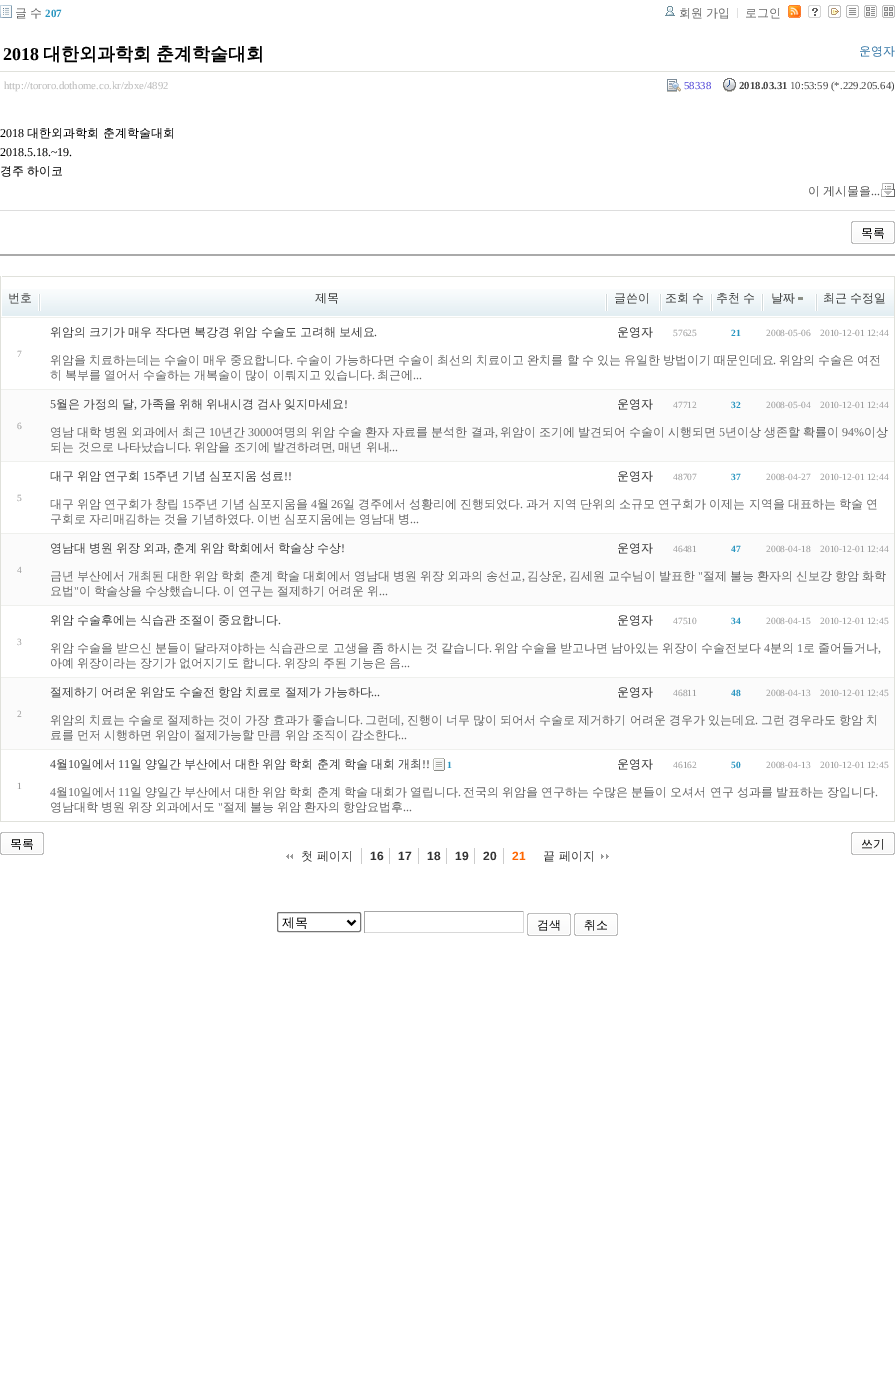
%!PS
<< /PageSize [895 1391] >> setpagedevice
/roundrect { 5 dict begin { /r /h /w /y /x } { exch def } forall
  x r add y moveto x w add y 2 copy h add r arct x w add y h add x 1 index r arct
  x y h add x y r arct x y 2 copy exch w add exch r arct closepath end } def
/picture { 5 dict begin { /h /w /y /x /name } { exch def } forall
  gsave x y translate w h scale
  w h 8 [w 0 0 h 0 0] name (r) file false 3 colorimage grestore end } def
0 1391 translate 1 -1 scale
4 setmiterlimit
1 setgray
0 0 895 1391 rectfill
(img1.rgb) 0 5 12 13 picture
/WenQuanYiZenHei-Medium [12 0 0 -12 0 0] selectfont
0.4 setgray
15 17 moveto -0.5 0 32 (글 수) widthshow
/LiberationSerif-Bold [11 0 0 -11 0 0] selectfont
0.157 0.584 0.753 setrgbcolor
45 17 moveto (207) show
(img2.rgb) 665 6 10 10 picture
/WenQuanYiZenHei-Medium [12 0 0 -12 0 0] selectfont
0.4 setgray
679 17 moveto -0.5 0 32 (회원 가입) widthshow
745 17 moveto (로그인) show
0.878 setgray
737 8 1 10 rectfill
(img3.rgb) 788 5 13 13 picture
(img4.rgb) 808 5 13 13 picture
(img5.rgb) 828 5 13 13 picture
(img6.rgb) 846 5 13 13 picture
(img7.rgb) 864 5 13 13 picture
(img8.rgb) 882 5 13 13 picture
0.667 setgray
0 254 895 2 rectfill
0.878 0.882 0.859 setrgbcolor
0 71 895 1 rectfill
/LiberationSerif-Bold [18 0 0 -18 0 0] selectfont
0 setgray
3 60 moveto (2018) show
/WenQuanYiZenHei-Bold [18 0 0 -18 0 0] selectfont
43 60 moveto (대한외과학회 춘계학술대회) show
/WenQuanYiZenHei-Medium [12 0 0 -12 0 0] selectfont
0.188 0.455 0.647 setrgbcolor
859 55 moveto (운영자) show
/LiberationSerif-Regular [10.75 0 0 -10.75 0 0] selectfont
0.733 setgray
4 89 moveto (http://tororo.dothome.co.kr/zbxe/4892) show
(img9.rgb) 667 79 14 13 picture
0.29 0.247 0.843 setrgbcolor
684 89 moveto (58338) show
(img10.rgb) 723 78 13 14 picture
/LiberationSerif-Bold [10.75 0 0 -10.75 0 0] selectfont
0.267 setgray
739 89 moveto (2018.03.31) show
/LiberationSerif-Regular [10.75 0 0 -10.75 0 0] selectfont
790 89 moveto (10:53:59 \(*.229.205.64\)) show
/LiberationSerif-Regular [12 0 0 -12 0 0] selectfont
0 setgray
0 137 moveto (2018) show
/WenQuanYiZenHei-Medium [12 0 0 -12 0 0] selectfont
27 137 moveto (대한외과학회 춘계학술대회) show
/LiberationSerif-Regular [12 0 0 -12 0 0] selectfont
0 156 moveto (2018.5.18.~19.) show
/WenQuanYiZenHei-Medium [12 0 0 -12 0 0] selectfont
0 175 moveto -0.5 0 32 (경주 하이코) widthshow
(img11.rgb) 881 183 14 14 picture
0.333 setgray
808 195 moveto -0.5 0 32 (이 게시물을) widthshow
/LiberationSerif-Regular [12 0 0 -12 0 0] selectfont
871 195 moveto (...) show
0.867 setgray
0 210 895 1 rectfill
(img12.rgb) 851 221 42 23 picture
(img13.rgb) 893 221 2 23 picture
/WenQuanYiZenHei-Medium [12 0 0 -12 0 0] selectfont
0 setgray
861 237 moveto (목록) show
0.878 0.882 0.859 setrgbcolor
894 276 1 546 rectfill
0 821 895 1 rectfill
0 276 1 546 rectfill
(img14.rgb) 2 289 36 27 picture
1 276 893 1 rectfill
1 setgray
1 276 1 1 rectfill
0.243 0.247 0.243 setrgbcolor
8 302 moveto (번호) show
(img15.rgb) 38 289 567 27 picture
315 302 moveto (제목) show
(img16.rgb) 605 289 54 27 picture
614 302 moveto (글쓴이) show
(img17.rgb) 659 289 51 27 picture
665 302 moveto -0.5 0 32 (조회 수) widthshow
(img17.rgb) 710 289 51 27 picture
716 302 moveto -0.5 0 32 (추천 수) widthshow
(img16.rgb) 761 289 54 27 picture
771 302 moveto (날짜) show
0.549 0.561 0.525 setrgbcolor
798 297 5 3 rectfill
(img18.rgb) 815 289 79 27 picture
0.243 0.247 0.243 setrgbcolor
823 302 moveto -0.5 0 32 (최근 수정일) widthshow
0.267 setgray
50 336 moveto -0.5 0 32 (위암의 크기가 매우 작다면 복강경 위암 수술도 고려해 보세요) widthshow
/LiberationSerif-Regular [12 0 0 -12 0 0] selectfont
374 336 moveto (.) show
/WenQuanYiZenHei-Medium [12 0 0 -12 0 0] selectfont
0.2 setgray
617 336 moveto (운영자) show
/LiberationSerif-Regular [9.5 0 0 -9.5 0 0] selectfont
0.6 setgray
673 336 moveto (57625) show
/LiberationSerif-Bold [9.5 0 0 -9.5 0 0] selectfont
0.157 0.584 0.753 setrgbcolor
731 336 moveto (21) show
/LiberationSerif-Regular [9.5 0 0 -9.5 0 0] selectfont
0.6 setgray
766 336 moveto (2008-05-06) show
820 336 moveto (2010-12-01 12:44) show
0.937 0.941 0.929 setrgbcolor
1 317 893 1 rectfill
0.6 setgray
17 357 moveto (7) show
/WenQuanYiZenHei-Medium [12 0 0 -12 0 0] selectfont
0.4 setgray
50 364 moveto -0.5 0 32 (위암을 치료하는데는 수술이 매우 중요합니다) widthshow
/LiberationSerif-Regular [12 0 0 -12 0 0] selectfont
290 364 moveto (.) show
/WenQuanYiZenHei-Medium [12 0 0 -12 0 0] selectfont
296 364 moveto -0.5 0 32 (수술이 가능하다면 수술이 최선의 치료이고 완치를 할 수 있는 유일한 방법이기 때문인데요) widthshow
/LiberationSerif-Regular [12 0 0 -12 0 0] selectfont
773 364 moveto (.) show
/WenQuanYiZenHei-Medium [12 0 0 -12 0 0] selectfont
779 364 moveto -0.5 0 32 (위암의 수술은 여전) widthshow
50 379 moveto -0.5 0 32 (히 복부를 열어서 수술하는 개복술이 많이 이뤄지고 있습니다) widthshow
/LiberationSerif-Regular [12 0 0 -12 0 0] selectfont
372 379 moveto (.) show
/WenQuanYiZenHei-Medium [12 0 0 -12 0 0] selectfont
377 379 moveto (최근에) show
/LiberationSerif-Regular [12 0 0 -12 0 0] selectfont
413 379 moveto (...) show
0.984 setgray
1 390 893 71 rectfill
0.267 setgray
50 408 moveto (5) show
/WenQuanYiZenHei-Medium [12 0 0 -12 0 0] selectfont
56 408 moveto -0.5 0 32 (월은 가정의 달) widthshow
/LiberationSerif-Regular [12 0 0 -12 0 0] selectfont
134 408 moveto (,) show
/WenQuanYiZenHei-Medium [12 0 0 -12 0 0] selectfont
140 408 moveto -0.5 0 32 (가족을 위해 위내시경 검사 잊지마세요) widthshow
/LiberationSerif-Regular [12 0 0 -12 0 0] selectfont
344 408 moveto (!) show
/WenQuanYiZenHei-Medium [12 0 0 -12 0 0] selectfont
0.2 setgray
617 408 moveto (운영자) show
/LiberationSerif-Regular [9.5 0 0 -9.5 0 0] selectfont
0.6 setgray
673 408 moveto (47712) show
/LiberationSerif-Bold [9.5 0 0 -9.5 0 0] selectfont
0.157 0.584 0.753 setrgbcolor
731 408 moveto (32) show
/LiberationSerif-Regular [9.5 0 0 -9.5 0 0] selectfont
0.6 setgray
766 408 moveto (2008-05-04) show
820 408 moveto (2010-12-01 12:44) show
0.937 0.941 0.929 setrgbcolor
1 389 893 1 rectfill
0.6 setgray
17 429 moveto (6) show
/WenQuanYiZenHei-Medium [12 0 0 -12 0 0] selectfont
0.4 setgray
50 436 moveto -0.5 0 32 (영남 대학 병원 외과에서 최근) widthshow
/LiberationSerif-Regular [12 0 0 -12 0 0] selectfont
209 436 moveto (10) show
/WenQuanYiZenHei-Medium [12 0 0 -12 0 0] selectfont
221 436 moveto (년간) show
/LiberationSerif-Regular [12 0 0 -12 0 0] selectfont
248 436 moveto (3000) show
/WenQuanYiZenHei-Medium [12 0 0 -12 0 0] selectfont
272 436 moveto -0.5 0 32 (여명의 위암 수술 환자 자료를 분석한 결과) widthshow
/LiberationSerif-Regular [12 0 0 -12 0 0] selectfont
495 436 moveto (,) show
/WenQuanYiZenHei-Medium [12 0 0 -12 0 0] selectfont
500 436 moveto -0.5 0 32 (위암이 조기에 발견되어 수술이 시행되면) widthshow
/LiberationSerif-Regular [12 0 0 -12 0 0] selectfont
719 436 moveto (5) show
/WenQuanYiZenHei-Medium [12 0 0 -12 0 0] selectfont
725 436 moveto -0.5 0 32 (년이상 생존할 확률이) widthshow
/LiberationSerif-Regular [12 0 0 -12 0 0] selectfont
842 436 moveto (94%) show
/WenQuanYiZenHei-Medium [12 0 0 -12 0 0] selectfont
864 436 moveto (이상) show
50 451 moveto (되는 것으로 나타났습니다) show
/LiberationSerif-Regular [12 0 0 -12 0 0] selectfont
188 451 moveto (.) show
/WenQuanYiZenHei-Medium [12 0 0 -12 0 0] selectfont
194 451 moveto (위암을 조기에 발견하려면) show
/LiberationSerif-Regular [12 0 0 -12 0 0] selectfont
332 451 moveto (,) show
/WenQuanYiZenHei-Medium [12 0 0 -12 0 0] selectfont
338 451 moveto (매년 위내) show
/LiberationSerif-Regular [12 0 0 -12 0 0] selectfont
389 451 moveto (...) show
/WenQuanYiZenHei-Medium [12 0 0 -12 0 0] selectfont
0.267 setgray
50 480 moveto -0.5 0 32 (대구 위암 연구회) widthshow
/LiberationSerif-Regular [12 0 0 -12 0 0] selectfont
143 480 moveto (15) show
/WenQuanYiZenHei-Medium [12 0 0 -12 0 0] selectfont
155 480 moveto -0.5 0 32 (주년 기념 심포지움 성료) widthshow
/LiberationSerif-Regular [12 0 0 -12 0 0] selectfont
284 480 moveto (!!) show
/WenQuanYiZenHei-Medium [12 0 0 -12 0 0] selectfont
0.2 setgray
617 480 moveto (운영자) show
/LiberationSerif-Regular [9.5 0 0 -9.5 0 0] selectfont
0.6 setgray
673 480 moveto (48707) show
/LiberationSerif-Bold [9.5 0 0 -9.5 0 0] selectfont
0.157 0.584 0.753 setrgbcolor
731 480 moveto (37) show
/LiberationSerif-Regular [9.5 0 0 -9.5 0 0] selectfont
0.6 setgray
766 480 moveto (2008-04-27) show
820 480 moveto (2010-12-01 12:44) show
0.937 0.941 0.929 setrgbcolor
1 461 893 1 rectfill
0.6 setgray
17 501 moveto (5) show
/WenQuanYiZenHei-Medium [12 0 0 -12 0 0] selectfont
0.4 setgray
50 508 moveto -0.5 0 32 (대구 위암 연구회가 창립) widthshow
/LiberationSerif-Regular [12 0 0 -12 0 0] selectfont
182 508 moveto (15) show
/WenQuanYiZenHei-Medium [12 0 0 -12 0 0] selectfont
194 508 moveto -0.5 0 32 (주년 기념 심포지움을) widthshow
/LiberationSerif-Regular [12 0 0 -12 0 0] selectfont
311 508 moveto (4) show
/WenQuanYiZenHei-Medium [12 0 0 -12 0 0] selectfont
317 508 moveto (월) show
/LiberationSerif-Regular [12 0 0 -12 0 0] selectfont
331 508 moveto (26) show
/WenQuanYiZenHei-Medium [12 0 0 -12 0 0] selectfont
343 508 moveto -0.5 0 32 (일 경주에서 성황리에 진행되었다) widthshow
/LiberationSerif-Regular [12 0 0 -12 0 0] selectfont
520 508 moveto (.) show
/WenQuanYiZenHei-Medium [12 0 0 -12 0 0] selectfont
526 508 moveto -0.5 0 32 (과거 지역 단위의 소규모 연구회가 이제는 지역을 대표하는 학술 연) widthshow
50 523 moveto -0.5 0 32 (구회로 자리매김하는 것을 기념하였다) widthshow
/LiberationSerif-Regular [12 0 0 -12 0 0] selectfont
251 523 moveto (.) show
/WenQuanYiZenHei-Medium [12 0 0 -12 0 0] selectfont
257 523 moveto -0.5 0 32 (이번 심포지움에는 영남대 병) widthshow
/LiberationSerif-Regular [12 0 0 -12 0 0] selectfont
410 523 moveto (...) show
0.984 setgray
1 534 893 71 rectfill
/WenQuanYiZenHei-Medium [12 0 0 -12 0 0] selectfont
0.267 setgray
50 552 moveto -0.5 0 32 (영남대 병원 위장 외과) widthshow
/LiberationSerif-Regular [12 0 0 -12 0 0] selectfont
167 552 moveto (,) show
/WenQuanYiZenHei-Medium [12 0 0 -12 0 0] selectfont
173 552 moveto -0.5 0 32 (춘계 위암 학회에서 학술상 수상) widthshow
/LiberationSerif-Regular [12 0 0 -12 0 0] selectfont
341 552 moveto (!) show
/WenQuanYiZenHei-Medium [12 0 0 -12 0 0] selectfont
0.2 setgray
617 552 moveto (운영자) show
/LiberationSerif-Regular [9.5 0 0 -9.5 0 0] selectfont
0.6 setgray
673 552 moveto (46481) show
/LiberationSerif-Bold [9.5 0 0 -9.5 0 0] selectfont
0.157 0.584 0.753 setrgbcolor
731 552 moveto (47) show
/LiberationSerif-Regular [9.5 0 0 -9.5 0 0] selectfont
0.6 setgray
766 552 moveto (2008-04-18) show
820 552 moveto (2010-12-01 12:44) show
0.937 0.941 0.929 setrgbcolor
1 533 893 1 rectfill
0.6 setgray
17 573 moveto (4) show
/WenQuanYiZenHei-Medium [12 0 0 -12 0 0] selectfont
0.4 setgray
50 580 moveto -0.5 0 32 (금년 부산에서 개최된 대한 위암 학회 춘계 학술 대회에서 영남대 병원 위장 외과의 송선교) widthshow
527 580 moveto (김상운) show
569 580 moveto -0.5 0 32 (김세원 교수님이 발표한) widthshow
/LiberationSerif-Regular [12 0 0 -12 0 0] selectfont
698 580 moveto (") show
/WenQuanYiZenHei-Medium [12 0 0 -12 0 0] selectfont
703 580 moveto -0.5 0 32 (절제 불능 환자의 신보강 항암 화학) widthshow
/LiberationSerif-Regular [12 0 0 -12 0 0] selectfont
522 580 moveto (,) show
563 580 moveto (,) show
/WenQuanYiZenHei-Medium [12 0 0 -12 0 0] selectfont
50 595 moveto (요법) show
/LiberationSerif-Regular [12 0 0 -12 0 0] selectfont
74 595 moveto (") show
/WenQuanYiZenHei-Medium [12 0 0 -12 0 0] selectfont
79 595 moveto -0.5 0 32 (이 학술상을 수상했습니다) widthshow
223 595 moveto -0.5 0 32 (이 연구는 절제하기 어려운 위) widthshow
/LiberationSerif-Regular [12 0 0 -12 0 0] selectfont
217 595 moveto (.) show
379 595 moveto (...) show
/WenQuanYiZenHei-Medium [12 0 0 -12 0 0] selectfont
0.267 setgray
50 624 moveto -0.5 0 32 (위암 수술후에는 식습관 조절이 중요합니다) widthshow
/LiberationSerif-Regular [12 0 0 -12 0 0] selectfont
278 624 moveto (.) show
/WenQuanYiZenHei-Medium [12 0 0 -12 0 0] selectfont
0.2 setgray
617 624 moveto (운영자) show
/LiberationSerif-Regular [9.5 0 0 -9.5 0 0] selectfont
0.6 setgray
673 624 moveto (47510) show
/LiberationSerif-Bold [9.5 0 0 -9.5 0 0] selectfont
0.157 0.584 0.753 setrgbcolor
731 624 moveto (34) show
/LiberationSerif-Regular [9.5 0 0 -9.5 0 0] selectfont
0.6 setgray
766 624 moveto (2008-04-15) show
820 624 moveto (2010-12-01 12:45) show
0.937 0.941 0.929 setrgbcolor
1 605 893 1 rectfill
0.6 setgray
17 645 moveto (3) show
/WenQuanYiZenHei-Medium [12 0 0 -12 0 0] selectfont
0.4 setgray
50 652 moveto -0.5 0 32 (위암 수술을 받으신 분들이 달라져야하는 식습관으로 고생을 좀 하시는 것 같습니다) widthshow
/LiberationSerif-Regular [12 0 0 -12 0 0] selectfont
489 652 moveto (.) show
/WenQuanYiZenHei-Medium [12 0 0 -12 0 0] selectfont
494 652 moveto -0.5 0 32 (위암 수술을 받고나면 남아있는 위장이 수술전보다) widthshow
/LiberationSerif-Regular [12 0 0 -12 0 0] selectfont
764 652 moveto (4) show
/WenQuanYiZenHei-Medium [12 0 0 -12 0 0] selectfont
770 652 moveto (분의) show
/LiberationSerif-Regular [12 0 0 -12 0 0] selectfont
797 652 moveto (1) show
/WenQuanYiZenHei-Medium [12 0 0 -12 0 0] selectfont
803 652 moveto -0.5 0 32 (로 줄어들거나) widthshow
/LiberationSerif-Regular [12 0 0 -12 0 0] selectfont
878 652 moveto (,) show
/WenQuanYiZenHei-Medium [12 0 0 -12 0 0] selectfont
50 667 moveto -0.5 0 32 (아예 위장이라는 장기가 없어지기도 합니다) widthshow
/LiberationSerif-Regular [12 0 0 -12 0 0] selectfont
278 667 moveto (.) show
/WenQuanYiZenHei-Medium [12 0 0 -12 0 0] selectfont
284 667 moveto -0.5 0 32 (위장의 주된 기능은 음) widthshow
/LiberationSerif-Regular [12 0 0 -12 0 0] selectfont
401 667 moveto (...) show
0.984 setgray
1 678 893 71 rectfill
/WenQuanYiZenHei-Medium [12 0 0 -12 0 0] selectfont
0.267 setgray
50 696 moveto -0.5 0 32 (절제하기 어려운 위암도 수술전 항암 치료로 절제가 가능하다) widthshow
/LiberationSerif-Regular [12 0 0 -12 0 0] selectfont
371 696 moveto (...) show
/WenQuanYiZenHei-Medium [12 0 0 -12 0 0] selectfont
0.2 setgray
617 696 moveto (운영자) show
/LiberationSerif-Regular [9.5 0 0 -9.5 0 0] selectfont
0.6 setgray
673 696 moveto (46811) show
/LiberationSerif-Bold [9.5 0 0 -9.5 0 0] selectfont
0.157 0.584 0.753 setrgbcolor
731 696 moveto (48) show
/LiberationSerif-Regular [9.5 0 0 -9.5 0 0] selectfont
0.6 setgray
766 696 moveto (2008-04-13) show
820 696 moveto (2010-12-01 12:45) show
0.937 0.941 0.929 setrgbcolor
1 677 893 1 rectfill
0.6 setgray
17 717 moveto (2) show
/WenQuanYiZenHei-Medium [12 0 0 -12 0 0] selectfont
0.4 setgray
50 724 moveto -0.5 0 32 (위암의 치료는 수술로 절제하는 것이 가장 효과가 좋습니다) widthshow
/LiberationSerif-Regular [12 0 0 -12 0 0] selectfont
360 724 moveto (.) show
/WenQuanYiZenHei-Medium [12 0 0 -12 0 0] selectfont
365 724 moveto (그런데) show
/LiberationSerif-Regular [12 0 0 -12 0 0] selectfont
401 724 moveto (,) show
/WenQuanYiZenHei-Medium [12 0 0 -12 0 0] selectfont
407 724 moveto -0.5 0 32 (진행이 너무 많이 되어서 수술로 제거하기 어려운 경우가 있는데요) widthshow
/LiberationSerif-Regular [12 0 0 -12 0 0] selectfont
755 724 moveto (.) show
/WenQuanYiZenHei-Medium [12 0 0 -12 0 0] selectfont
761 724 moveto -0.5 0 32 (그런 경우라도 항암 치) widthshow
50 739 moveto -0.5 0 32 (료를 먼저 시행하면 위암이 절제가능할 만큼 위암 조직이 감소한다) widthshow
/LiberationSerif-Regular [12 0 0 -12 0 0] selectfont
398 739 moveto (...) show
0.267 setgray
50 768 moveto (4) show
/WenQuanYiZenHei-Medium [12 0 0 -12 0 0] selectfont
56 768 moveto (월) show
/LiberationSerif-Regular [12 0 0 -12 0 0] selectfont
68 768 moveto (10) show
/WenQuanYiZenHei-Medium [12 0 0 -12 0 0] selectfont
80 768 moveto (일에서) show
/LiberationSerif-Regular [12 0 0 -12 0 0] selectfont
118 768 moveto (11) show
/WenQuanYiZenHei-Medium [12 0 0 -12 0 0] selectfont
130 768 moveto -0.5 0 32 (일 양일간 부산에서 대한 위암 학회 춘계 학술 대회 개최) widthshow
/LiberationSerif-Regular [12 0 0 -12 0 0] selectfont
422 768 moveto (!!) show
(img19.rgb) 433 758 12 13 picture
/LiberationSerif-Bold [9.5 0 0 -9.5 0 0] selectfont
0.157 0.584 0.753 setrgbcolor
447 768 moveto (1) show
/WenQuanYiZenHei-Medium [12 0 0 -12 0 0] selectfont
0.2 setgray
617 768 moveto (운영자) show
/LiberationSerif-Regular [9.5 0 0 -9.5 0 0] selectfont
0.6 setgray
673 768 moveto (46162) show
/LiberationSerif-Bold [9.5 0 0 -9.5 0 0] selectfont
0.157 0.584 0.753 setrgbcolor
731 768 moveto (50) show
/LiberationSerif-Regular [9.5 0 0 -9.5 0 0] selectfont
0.6 setgray
766 768 moveto (2008-04-13) show
820 768 moveto (2010-12-01 12:45) show
0.937 0.941 0.929 setrgbcolor
1 749 893 1 rectfill
0.6 setgray
17 789 moveto (1) show
/LiberationSerif-Regular [12 0 0 -12 0 0] selectfont
0.4 setgray
50 796 moveto (4) show
/WenQuanYiZenHei-Medium [12 0 0 -12 0 0] selectfont
56 796 moveto (월) show
/LiberationSerif-Regular [12 0 0 -12 0 0] selectfont
68 796 moveto (10) show
/WenQuanYiZenHei-Medium [12 0 0 -12 0 0] selectfont
80 796 moveto (일에서) show
/LiberationSerif-Regular [12 0 0 -12 0 0] selectfont
118 796 moveto (11) show
/WenQuanYiZenHei-Medium [12 0 0 -12 0 0] selectfont
130 796 moveto -0.5 0 32 (일 양일간 부산에서 대한 위암 학회 춘계 학술 대회가 열립니다) widthshow
/LiberationSerif-Regular [12 0 0 -12 0 0] selectfont
458 796 moveto (.) show
/WenQuanYiZenHei-Medium [12 0 0 -12 0 0] selectfont
463 796 moveto -0.5 0 32 (전국의 위암을 연구하는 수많은 분들이 오셔서 연구 성과를 발표하는 장입니다) widthshow
/LiberationSerif-Regular [12 0 0 -12 0 0] selectfont
875 796 moveto (.) show
/WenQuanYiZenHei-Medium [12 0 0 -12 0 0] selectfont
50 811 moveto -0.5 0 32 (영남대학 병원 위장 외과에서도) widthshow
/LiberationSerif-Regular [12 0 0 -12 0 0] selectfont
218 811 moveto (") show
/WenQuanYiZenHei-Medium [12 0 0 -12 0 0] selectfont
223 811 moveto -0.5 0 32 (절제 불능 위암 환자의 항암요법후) widthshow
/LiberationSerif-Regular [12 0 0 -12 0 0] selectfont
403 811 moveto (...) show
(img12.rgb) 0 832 42 23 picture
(img13.rgb) 42 832 2 23 picture
/WenQuanYiZenHei-Medium [12 0 0 -12 0 0] selectfont
0 setgray
10 848 moveto (목록) show
(img12.rgb) 851 832 42 23 picture
(img13.rgb) 893 832 2 23 picture
861 848 moveto (쓰기) show
(img20.rgb) 286 854 7 5 picture
0.2 setgray
301 860 moveto (첫 페이지) show
0.8 setgray
361 848 1 16 rectfill
/LiberationSans-Bold [12 0 0 -12 0 0] selectfont
0.2 setgray
370 860 moveto (16) show
0.8 setgray
389 848 1 16 rectfill
0.2 setgray
398 860 moveto (17) show
0.8 setgray
418 848 1 16 rectfill
0.2 setgray
427 860 moveto (18) show
0.8 setgray
446 848 1 16 rectfill
0.2 setgray
455 860 moveto (19) show
0.8 setgray
474 848 1 16 rectfill
0.2 setgray
483 860 moveto (20) show
0.8 setgray
503 848 1 16 rectfill
1 0.4 0 setrgbcolor
512 860 moveto (21) show
(img21.rgb) 601 854 8 5 picture
/WenQuanYiZenHei-Medium [12 0 0 -12 0 0] selectfont
0.2 setgray
543 860 moveto (끝 페이지) show
0.463 setgray
277.5 912.5 83 19 1.5 roundrect stroke
0 setgray
2 setlinewidth
newpath 347.5 920.5 moveto 351.5 924.5 lineto 355.5 920.5 lineto stroke
/WenQuanYiZenHei-Medium [13 0 0 -13 0 0] selectfont
282 927 moveto (제목) show
0.651 setgray
364 911 160 1 rectfill
0.847 setgray
523 911 1 22 rectfill
364 932 160 1 rectfill
0.651 setgray
364 911 1 22 rectfill
(img12.rgb) 527 913 42 23 picture
(img13.rgb) 569 913 2 23 picture
/WenQuanYiZenHei-Medium [12 0 0 -12 0 0] selectfont
0 setgray
537 929 moveto (검색) show
(img12.rgb) 574 913 42 23 picture
(img13.rgb) 616 913 2 23 picture
584 929 moveto (취소) show
showpage
